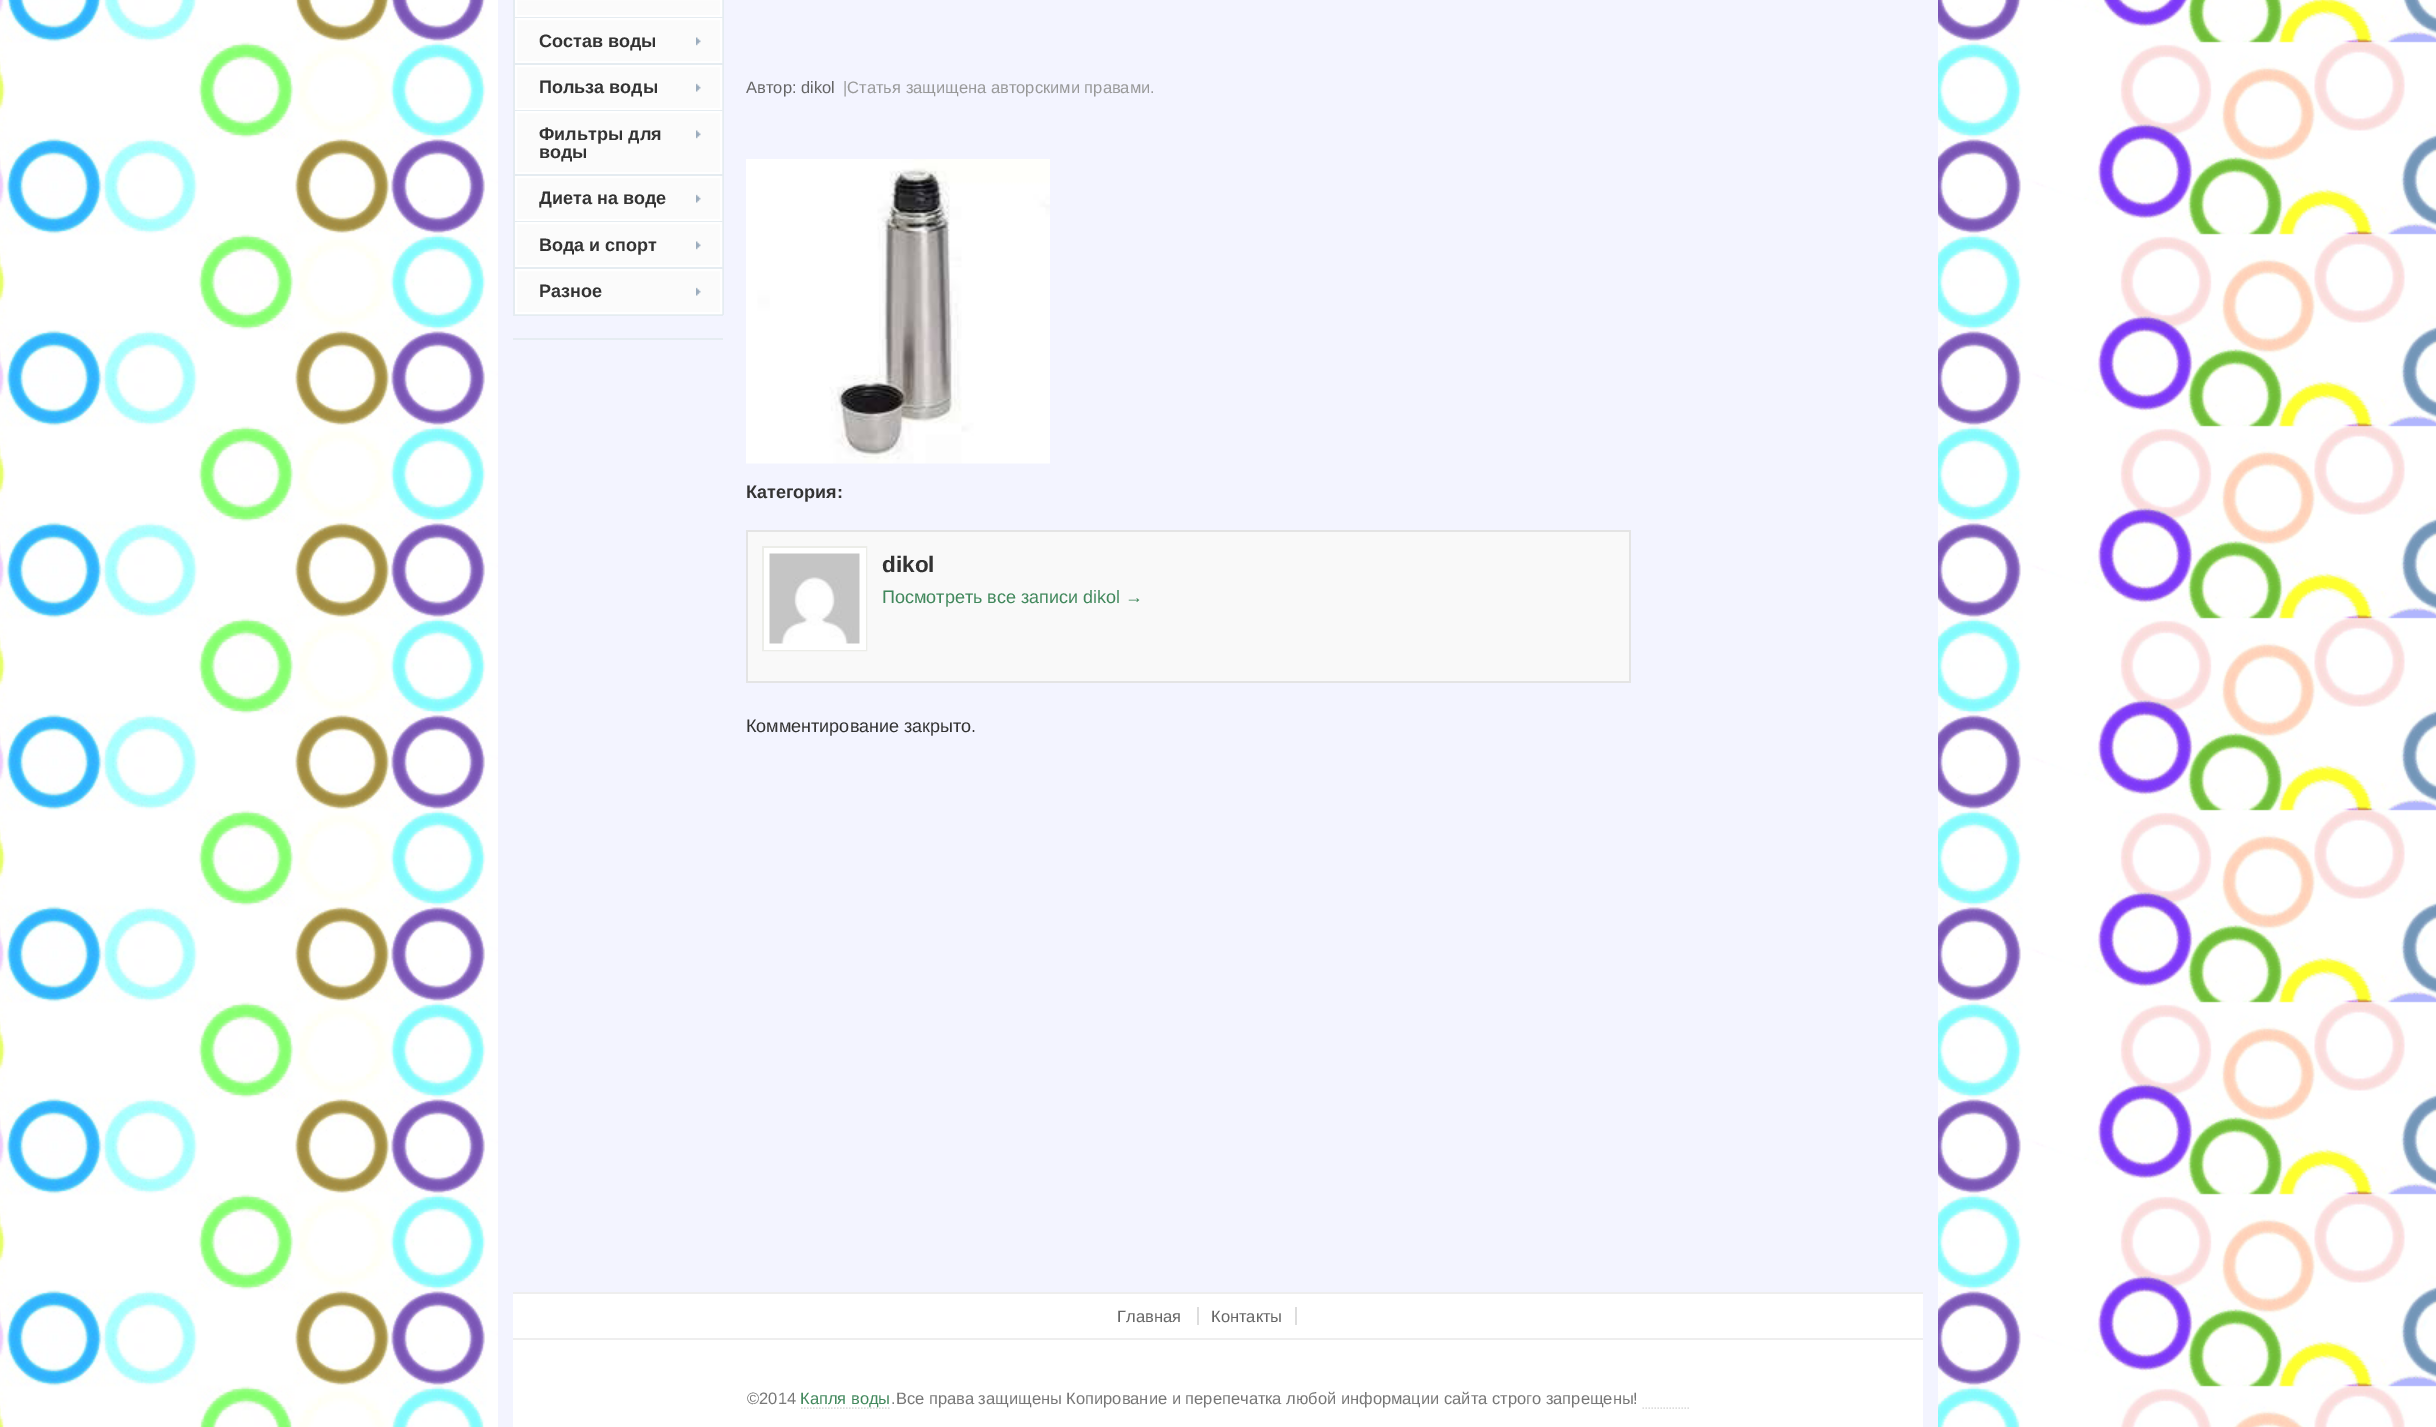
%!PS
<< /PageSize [2436 1427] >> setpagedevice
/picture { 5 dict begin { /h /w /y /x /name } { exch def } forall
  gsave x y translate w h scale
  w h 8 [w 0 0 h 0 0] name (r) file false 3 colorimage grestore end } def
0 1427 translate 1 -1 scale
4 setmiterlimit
1 setgray
0 0 2436 1427 rectfill
(img1.rgb) 0 0 2436 1427 picture
0.953 0.957 1 setrgbcolor
498 0 1440 1427 rectfill
0.898 0.925 0.945 setrgbcolor
722 0 2 315 rectfill
513 314 210 2 rectfill
513 0 2 315 rectfill
0.984 setgray
newpath 516 -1 moveto 721 -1 lineto 721 16 lineto 516 16 lineto closepath gsave fill grestore
1 setgray
2 setlinewidth
stroke
0.898 0.925 0.945 setrgbcolor
515 17 207 1 rectfill
0.984 setgray
517 20 203 41 rectfill
(img2.rgb) 696 37 5 9 picture
1 setgray
516 19 205 43 rectstroke
/LiberationSans-Bold [18 0 0 -18 0 0] selectfont
0.2 setgray
539 47 moveto (Состав воды) show
0.898 0.925 0.945 setrgbcolor
515 63 207 2 rectfill
0.984 setgray
517 67 203 41 rectfill
(img3.rgb) 696 83 5 9 picture
1 setgray
516 66 205 43 rectstroke
0.2 setgray
539 93 moveto (Польза воды) show
0.898 0.925 0.945 setrgbcolor
515 110 207 1 rectfill
0.984 setgray
517 113 203 59 rectfill
(img2.rgb) 696 130 5 9 picture
1 setgray
516 112 205 61 rectstroke
0.2 setgray
539 140 moveto (Фильтры для) show
539 158 moveto (воды) show
0.898 0.925 0.945 setrgbcolor
515 174 207 2 rectfill
0.984 setgray
517 178 203 41 rectfill
(img3.rgb) 696 194 5 9 picture
1 setgray
516 177 205 43 rectstroke
0.2 setgray
539 204 moveto (Диета на воде) show
0.898 0.925 0.945 setrgbcolor
515 221 207 1 rectfill
0.984 setgray
517 224 203 41 rectfill
(img2.rgb) 696 241 5 9 picture
1 setgray
516 223 205 43 rectstroke
0.2 setgray
539 251 moveto (Вода и спорт) show
0.898 0.925 0.945 setrgbcolor
515 267 207 2 rectfill
0.984 setgray
517 271 203 41 rectfill
(img3.rgb) 696 287 5 9 picture
1 setgray
516 270 205 43 rectstroke
0.2 setgray
539 297 moveto (Разное) show
0.898 0.925 0.945 setrgbcolor
513 338 210 2 rectfill
/LiberationSans-Regular [16.5 0 0 -16.5 0 0] selectfont
0.4 setgray
746 93 moveto (Автор: dikol) show
0.6 setgray
843 93 moveto (|Статья защищена авторскими правами.) show
(img4.rgb) 746 159 304 305 picture
/LiberationSans-Bold [18 0 0 -18 0 0] selectfont
0.2 setgray
746 498 moveto (Категория:) show
0.976 setgray
748 532 881 149 rectfill
0.894 setgray
746 530 885 2 rectfill
1629 530 2 151 rectfill
746 530 2 151 rectfill
0.925 0.929 0.91 setrgbcolor
763 547 103 103 rectstroke
1 setgray
764 548 102 102 rectfill
(img5.rgb) 769 553 91 91 picture
/LiberationSans-Bold [22.5 0 0 -22.5 0 0] selectfont
0.2 setgray
882 572 moveto (dikol) show
/LiberationSans-Regular [18 0 0 -18 0 0] selectfont
0.255 0.533 0.361 setrgbcolor
882 603 moveto (Посмотреть все записи dikol →) show
0.894 setgray
746 681 885 2 rectfill
0.2 setgray
746 732 moveto (Комментирование закрыто.) show
1 setgray
513 1294 1410 133 rectfill
0.933 setgray
513 1292 1410 2 rectfill
513 1338 1410 2 rectfill
/LiberationSans-Regular [16.5 0 0 -16.5 0 0] selectfont
0.4 setgray
1117 1322 moveto (Главная) show
1211 1322 moveto (Контакты) show
0.867 setgray
1197 1307 2 18 rectfill
1295 1307 2 18 rectfill
0.467 setgray
747 1404 moveto (©2014) show
0.867 setgray
1.5 setlinewidth
[1.5 1.5] 0 setdash
newpath 801 1408 moveto 891 1408 lineto stroke
0.255 0.533 0.361 setrgbcolor
800 1404 moveto (Капля воды) show
0.467 setgray
891 1404 moveto (.Все права защищены Копирование и перепечатка любой информации сайта строго запрещены!) show
0.867 setgray
newpath 1642.5 1408 moveto 1689 1408 lineto stroke
showpage
